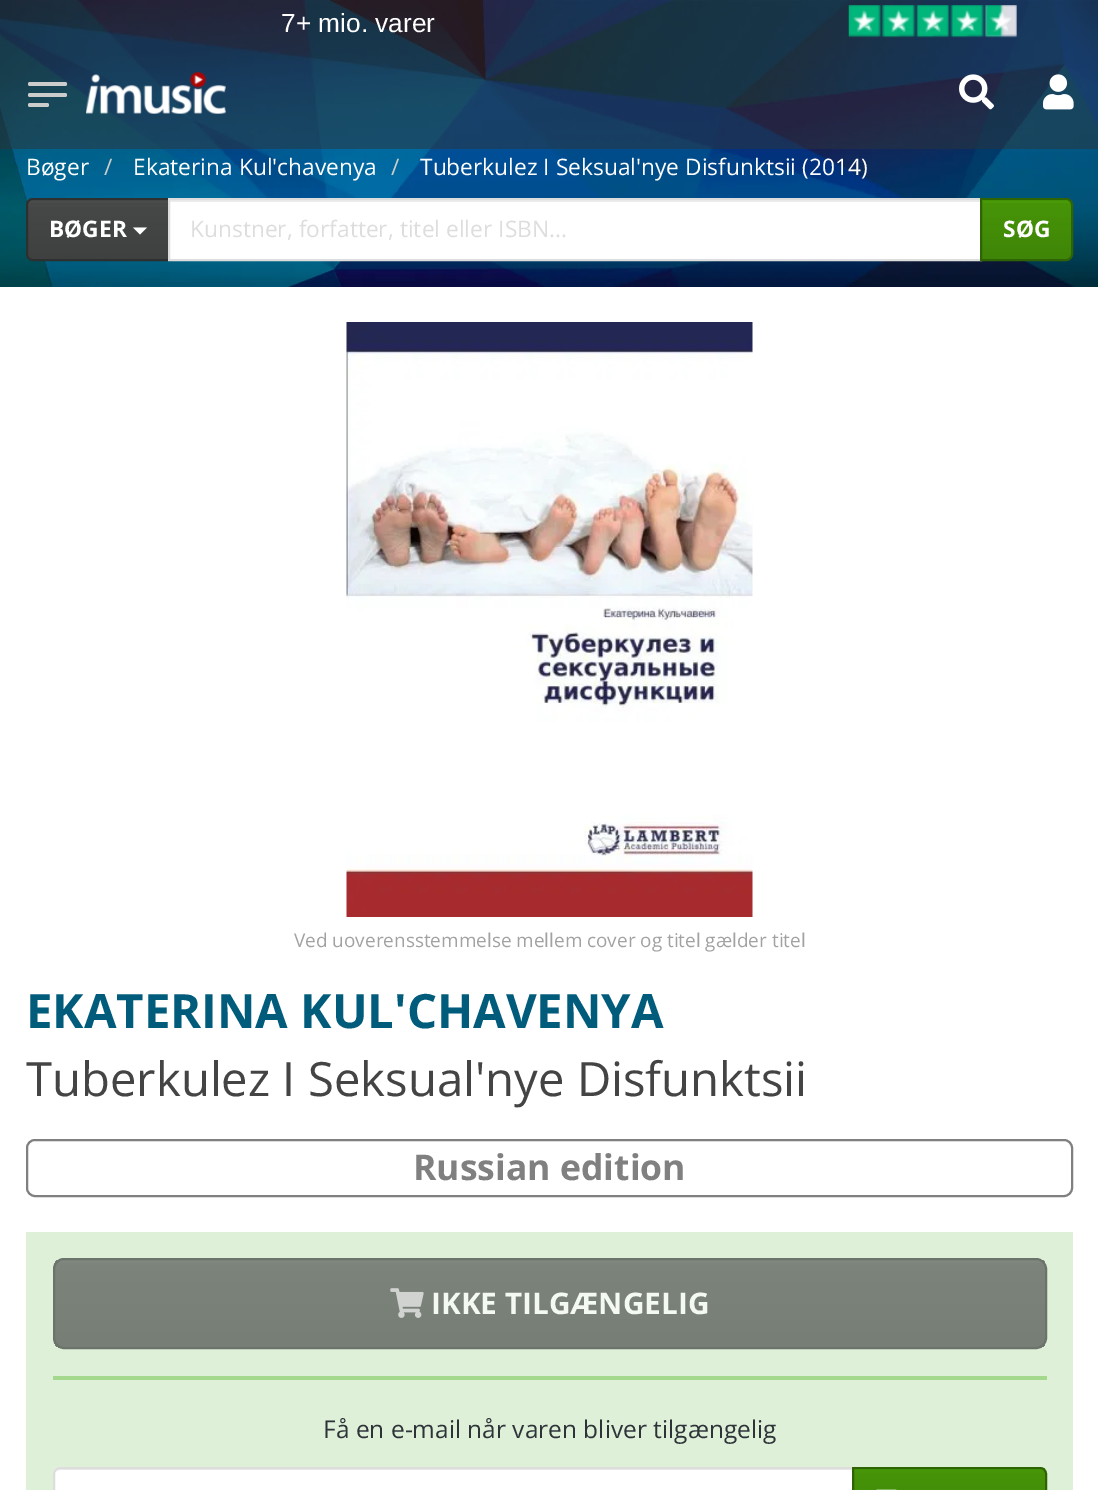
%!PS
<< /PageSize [1098 1490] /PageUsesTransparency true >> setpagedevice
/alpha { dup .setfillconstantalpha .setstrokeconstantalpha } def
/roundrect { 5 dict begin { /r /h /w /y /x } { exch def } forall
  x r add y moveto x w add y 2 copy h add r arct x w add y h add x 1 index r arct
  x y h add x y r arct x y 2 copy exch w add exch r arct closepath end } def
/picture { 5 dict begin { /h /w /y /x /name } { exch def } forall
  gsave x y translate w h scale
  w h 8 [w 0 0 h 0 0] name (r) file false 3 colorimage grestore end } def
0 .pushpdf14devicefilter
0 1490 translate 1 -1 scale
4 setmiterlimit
1 setgray
0 0 1098 1490 rectfill
(img1.rgb) 0 0 1098 287 picture
0.5 alpha
0.176 0.2 0.224 setrgbcolor
0 0 1098 149 rectfill
/LiberationSans-Regular [26.25 0 0 -26.25 0 0] selectfont
1 alpha
1 setgray
281 32 moveto (7+ mio. varer) show
(img2.rgb) 848 5 169 33 picture
0.8 setgray
28 82 39 4 2 roundrect fill
28 93 39 4 2 roundrect fill
28 103 21 4 2 roundrect fill
(img3.rgb) 86 71 140 43 picture
(img4.rgb) 959 74 35 36 picture
(img5.rgb) 1043 74 31 36 picture
/OpenSans-Regular [22.75 0 0 -22.75 0 0] selectfont
1 setgray
26 175 moveto (Bøger) show
0.8 setgray
104 175 moveto (/) show
1 setgray
133 175 moveto (Ekaterina Kul'chavenya) show
0.8 setgray
391 175 moveto (/) show
1 setgray
420 175 moveto (Tuberkulez I Seksual'nye Disfunktsii \(2014\)) show
gsave newpath 28 200 moveto 168 200 lineto 168 259 lineto 28 259 lineto closepath clip newpath
<< /ShadingType 2 /ColorSpace /DeviceRGB /Coords [98 200 98 259] /Extend [true true] /Function << /FunctionType 3 /Domain [0 1] /Functions [<< /FunctionType 2 /Domain [0 1] /C0 [0.31 0.318 0.318] /C1 [0.278 0.286 0.286] /N 1 >> << /FunctionType 2 /Domain [0 1] /C0 [0.278 0.286 0.286] /C1 [0.247 0.255 0.255] /N 1 >>] /Bounds [0.06] /Encode [0 1 0 1] >> >> shfill grestore
0.18 0.184 0.184 setrgbcolor
2 setlinewidth
newpath 33 199 moveto 169 199 lineto 169 260 lineto 33 260 lineto 29.5 260 27 257.5 27 254 curveto 27 205 lineto 27 201.5 29.5 199 33 199 curveto closepath stroke
/OpenSans-Bold [22.75 0 0 -22.75 0 0] selectfont
1 setgray
49 237 moveto (BØGER) show
newpath 133 227.5 moveto 147 227.5 lineto 140 234.5 lineto closepath fill
170 202 810 57 rectfill
0.925 setgray
170 200 810 2 rectfill
0.867 setgray
169 199 812 61 rectstroke
/OpenSans-Regular [22.75 0 0 -22.75 0 0] selectfont
190 237 moveto (Kunstner, forfatter, titel eller ISBN...) show
gsave newpath 982 200 moveto 1071 200 lineto 1071 259 lineto 982 259 lineto closepath clip newpath
<< /ShadingType 2 /ColorSpace /DeviceRGB /Coords [1026 200 1026 259] /Extend [true true] /Function << /FunctionType 3 /Domain [0 1] /Functions [<< /FunctionType 2 /Domain [0 1] /C0 [0.302 0.639 0.035] /C1 [0.275 0.58 0.031] /N 1 >> << /FunctionType 2 /Domain [0 1] /C0 [0.275 0.58 0.031] /C1 [0.247 0.522 0.027] /N 1 >>] /Bounds [0.06] /Encode [0 1 0 1] >> >> shfill grestore
0.184 0.392 0.02 setrgbcolor
newpath 981 199 moveto 1066 199 lineto 1069.5 199 1072 201.5 1072 205 curveto 1072 254 lineto 1072 257.5 1069.5 260 1066 260 curveto 981 260 lineto closepath stroke
/OpenSans-Bold [22.75 0 0 -22.75 0 0] selectfont
1 setgray
1003 237 moveto (SØG) show
(img6.rgb) 346 322 407 595 picture
/OpenSans-Regular [18.95 0 0 -18.95 0 0] selectfont
0.635 setgray
294 947 moveto (Ved uoverensstemmelse mellem cover og titel gælder titel) show
/OpenSans-Bold [47.25 0 0 -47.25 0 0] selectfont
0.004 0.357 0.482 setrgbcolor
26 1028 moveto (EKATERINA KUL'CHAVENYA) show
/OpenSans-Regular [47.25 0 0 -47.25 0 0] selectfont
0.267 setgray
26 1096 moveto (Tuberkulez I Seksual'nye Disfunktsii) show
0.502 setgray
27 1140 1045 56 8 roundrect stroke
/OpenSans-Bold [35.5 0 0 -35.5 0 0] selectfont
413 1180 moveto (Russian edition) show
0.875 0.941 0.847 setrgbcolor
26 1232 1047 258 rectfill
gsave
53 1258 994 91 11 roundrect clip newpath
gsave newpath 54 1260 moveto 1045 1260 lineto 1045 1348 lineto 54 1348 lineto closepath clip newpath
<< /ShadingType 2 /ColorSpace /DeviceRGB /Coords [550 1260 550 1348] /Extend [true true] /Function << /FunctionType 3 /Domain [0 1] /Functions [<< /FunctionType 2 /Domain [0 1] /C0 [0.506 0.537 0.502] /C1 [0.486 0.514 0.482] /N 1 >> << /FunctionType 2 /Domain [0 1] /C0 [0.486 0.514 0.482] /C1 [0.467 0.494 0.463] /N 1 >>] /Bounds [0.06] /Encode [0 1 0 1] >> >> shfill grestore
grestore
0.424 0.451 0.416 setrgbcolor
54 1259 992 89 10 roundrect stroke
(img7.rgb) 390 1288 34 30 picture
/OpenSans-Bold [29.75 0 0 -29.75 0 0] selectfont
0.957 0.98 0.945 setrgbcolor
431 1314 moveto (IKKE TILGÆNGELIG) show
0.639 0.847 0.553 setrgbcolor
53 1376 994 4 rectfill
/OpenSans-Regular [24.5 0 0 -24.5 0 0] selectfont
0.176 0.2 0.224 setrgbcolor
323 1438 moveto (Få en e-mail når varen bliver tilgængelig) show
1 setgray
newpath 60 1467 moveto 854 1467 lineto 854 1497 lineto 60 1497 lineto 56 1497 53 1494 53 1490 curveto 53 1474 lineto 53 1470 56 1467 60 1467 curveto closepath fill
0.925 setgray
newpath 60 1470 moveto 852 1470 lineto 852 1468 lineto 59 1468 lineto 55 1468 54 1472 54 1475 curveto 54 1472 57 1470 60 1470 curveto closepath fill
0.867 setgray
newpath 60 1468 moveto 853 1468 lineto 853 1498 lineto 60 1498 lineto 56.5 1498 54 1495.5 54 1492 curveto 54 1474 lineto 54 1470.5 56.5 1468 60 1468 curveto closepath stroke
gsave newpath 854 1468 moveto 1045 1468 lineto 1045 1490 lineto 854 1490 lineto closepath clip newpath
<< /ShadingType 2 /ColorSpace /DeviceRGB /Coords [949 1468 949 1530] /Extend [true true] /Function << /FunctionType 3 /Domain [0 1] /Functions [<< /FunctionType 2 /Domain [0 1] /C0 [0.302 0.639 0.035] /C1 [0.275 0.58 0.031] /N 1 >> << /FunctionType 2 /Domain [0 1] /C0 [0.275 0.58 0.031] /C1 [0.247 0.522 0.027] /N 1 >>] /Bounds [0.06] /Encode [0 1 0 1] >> >> shfill grestore
0.184 0.392 0.02 setrgbcolor
newpath 853 1468 moveto 1040 1468 lineto 1043.5 1468 1046 1470.5 1046 1474 curveto 1046 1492 lineto 1046 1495.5 1043.5 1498 1040 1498 curveto 853 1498 lineto closepath stroke
(img8.rgb) 876 1489 21 1 picture
.poppdf14devicefilter showpage
